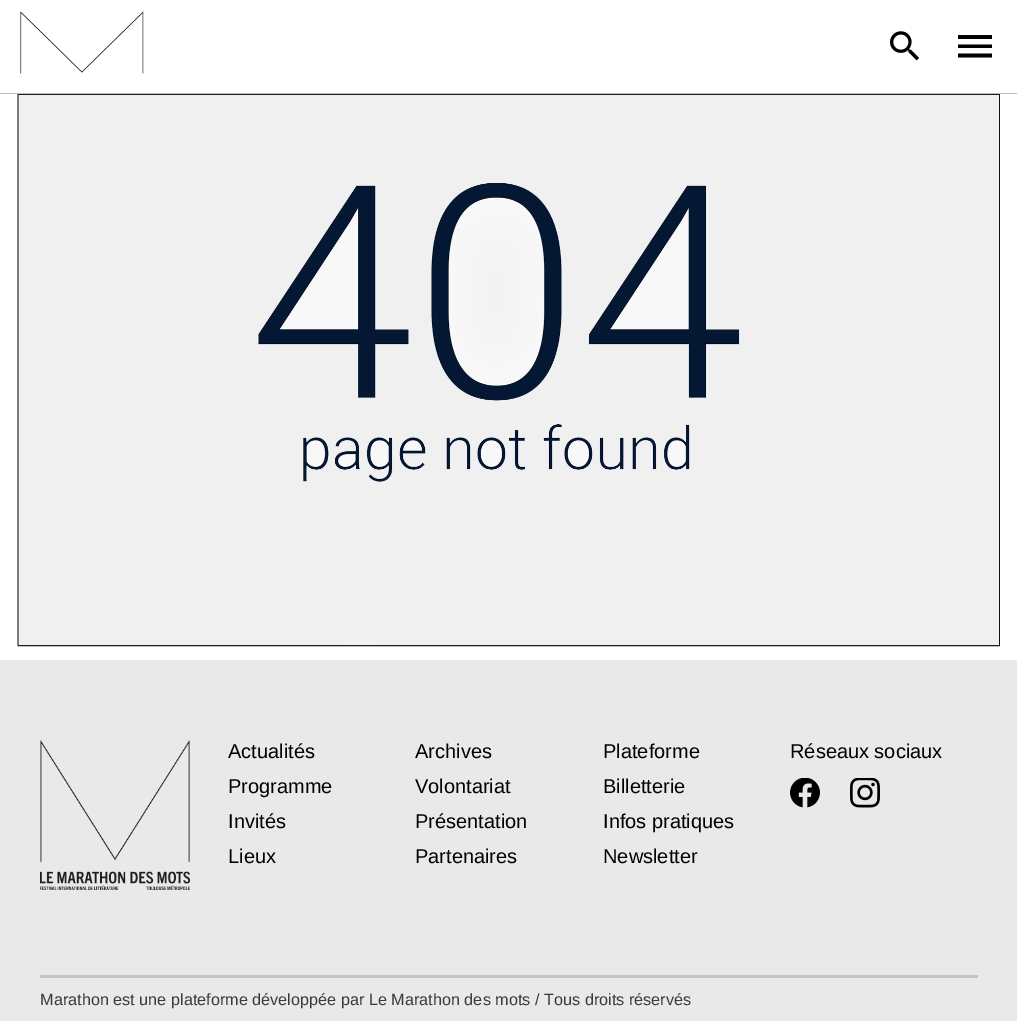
%!PS
<< /PageSize [1017 1021] >> setpagedevice
/picture { 5 dict begin { /h /w /y /x /name } { exch def } forall
  gsave x y translate w h scale
  w h 8 [w 0 0 h 0 0] name (r) file false 3 colorimage grestore end } def
0 1021 translate 1 -1 scale
4 setmiterlimit
1 setgray
0 0 1017 1021 rectfill
0.749 setgray
0 93 1017 1 rectfill
(img1.rgb) 20 11 124 63 picture
(img2.rgb) 890 31 29 30 picture
0 setgray
newpath 958 35 moveto 992 35 lineto 992 39 lineto 958 39 lineto closepath 958 48 moveto 958 44.5 lineto 992 44.5 lineto 992 48 lineto closepath 958 57.5 moveto 958 53.5 lineto 992 53.5 lineto 992 57.5 lineto closepath fill
(img3.rgb) 17 94 983 553 picture
0.914 setgray
0 660 1017 361 rectfill
(img4.rgb) 40 740 150 150 picture
/LiberationSans-Regular [20 0 0 -20 0 0] selectfont
0 setgray
228 758 moveto (Actualités) show
228 793 moveto (Programme) show
228 828 moveto (Invités) show
228 863 moveto (Lieux) show
415 758 moveto (Archives) show
415 793 moveto (Volontariat) show
415 828 moveto (Présentation) show
415 863 moveto (Partenaires) show
603 758 moveto (Plateforme) show
603 793 moveto (Billetterie) show
603 828 moveto (Infos pratiques) show
603 863 moveto (Newsletter) show
790 758 moveto (Réseaux sociaux) show
(img5.rgb) 790 778 30 30 picture
(img6.rgb) 850 778 30 30 picture
0.765 setgray
40 975 938 3 rectfill
/LiberationSans-Regular [16.25 0 0 -16.25 0 0] selectfont
0.227 setgray
40 1005 moveto (Marathon est une plateforme développée par Le Marathon des mots / Tous droits réservés) show
showpage
